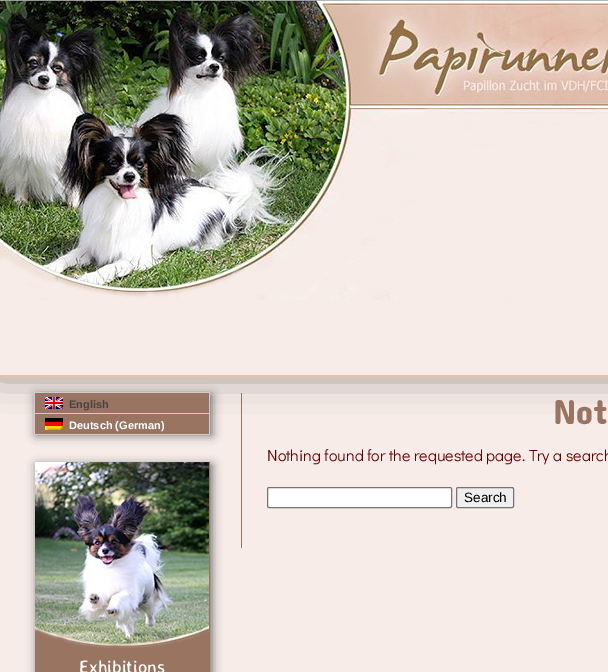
%!PS
<< /PageSize [608 672] /PageUsesTransparency true >> setpagedevice
/alpha { dup .setfillconstantalpha .setstrokeconstantalpha } def
/roundrect { 5 dict begin { /r /h /w /y /x } { exch def } forall
  x r add y moveto x w add y 2 copy h add r arct x w add y h add x 1 index r arct
  x y h add x y r arct x y 2 copy exch w add exch r arct closepath end } def
/shadow { 12 dict begin { /a /b /q /h /w /y /x } { exch def } forall gsave /was 0 def
  9 -2 -9 { dup b mul 4 div /e exch def 1 sub .425 mul 2.718 exch exp 1 add a .99 .min exch div /now exch def
    1 1 now sub 1 was sub div sub alpha /was now def
    w h .min e 2 mul add 0 gt { x e sub y e sub w e 2 mul add h e 2 mul add
      q e add b .6 mul add w h .min 2 div e add .min 0 .max roundrect fill } if } for grestore end } def
/picture { 5 dict begin { /h /w /y /x /name } { exch def } forall
  gsave x y translate w h scale
  w h 8 [w 0 0 h 0 0] name (r) file false 3 colorimage grestore end } def
0 .pushpdf14devicefilter
0 672 translate 1 -1 scale
4 setmiterlimit
0.969 0.925 0.91 setrgbcolor
0 0 608 672 rectfill
0.6 0.455 0.38 setrgbcolor
241 393 1 155 rectfill
0.4 setgray
-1 -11 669 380 0 20 1 shadow
0.875 0.761 0.69 setrgbcolor
0 375 608 3 rectfill
0.969 0.925 0.91 setrgbcolor
0 300 608 75 rectfill
(img1.rgb) 0 0 608 300 picture
0.4 setgray
36 395 176 40 0 5 1 shadow
0.804 setgray
34 392 176 1 rectfill
0.6 0.455 0.38 setrgbcolor
35 393 174 20 rectfill
0.804 setgray
209 393 1 42 rectfill
34 413 176 1 rectfill
34 393 1 21 rectfill
(img2.rgb) 45 397 18 12 picture
/LiberationSans-Bold [11 0 0 -11 0 0] selectfont
0.267 setgray
69 408 moveto (English) show
0.6 0.455 0.38 setrgbcolor
35 414 174 20 rectfill
0.804 setgray
34 434 176 1 rectfill
34 414 1 21 rectfill
(img3.rgb) 45 418 18 12 picture
1 setgray
69 429 moveto (Deutsch \(German\)) show
0.4 setgray
37 465 175 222 0 5 1 shadow
0.6 0.455 0.38 setrgbcolor
35 462 175 210 rectfill
(img4.rgb) 35 462 174 186 picture
/AveriaSansLibre-Regular [18 0 0 -18 0 0] selectfont
1 setgray
79 673 moveto (Exhibitions) show
/ConcertOne-Regular [35 0 0 -35 0 0] selectfont
0.6 0.455 0.38 setrgbcolor
553 424 moveto (Not) show
/DidactGothic-Regular [16 0 0 -16 0 0] selectfont
0.4 0 0 setrgbcolor
267 461 moveto (Nothing found for the requested page. Try a search) show
1 setgray
267.5 487.5 184 20 1.5 roundrect gsave fill grestore
0.463 setgray
stroke
0.937 setgray
456.5 487.5 57 20 1.5 roundrect gsave fill grestore
0.463 setgray
stroke
/LiberationSans-Regular [13.5 0 0 -13.5 0 0] selectfont
0 setgray
464 502 moveto (Search) show
.poppdf14devicefilter showpage
